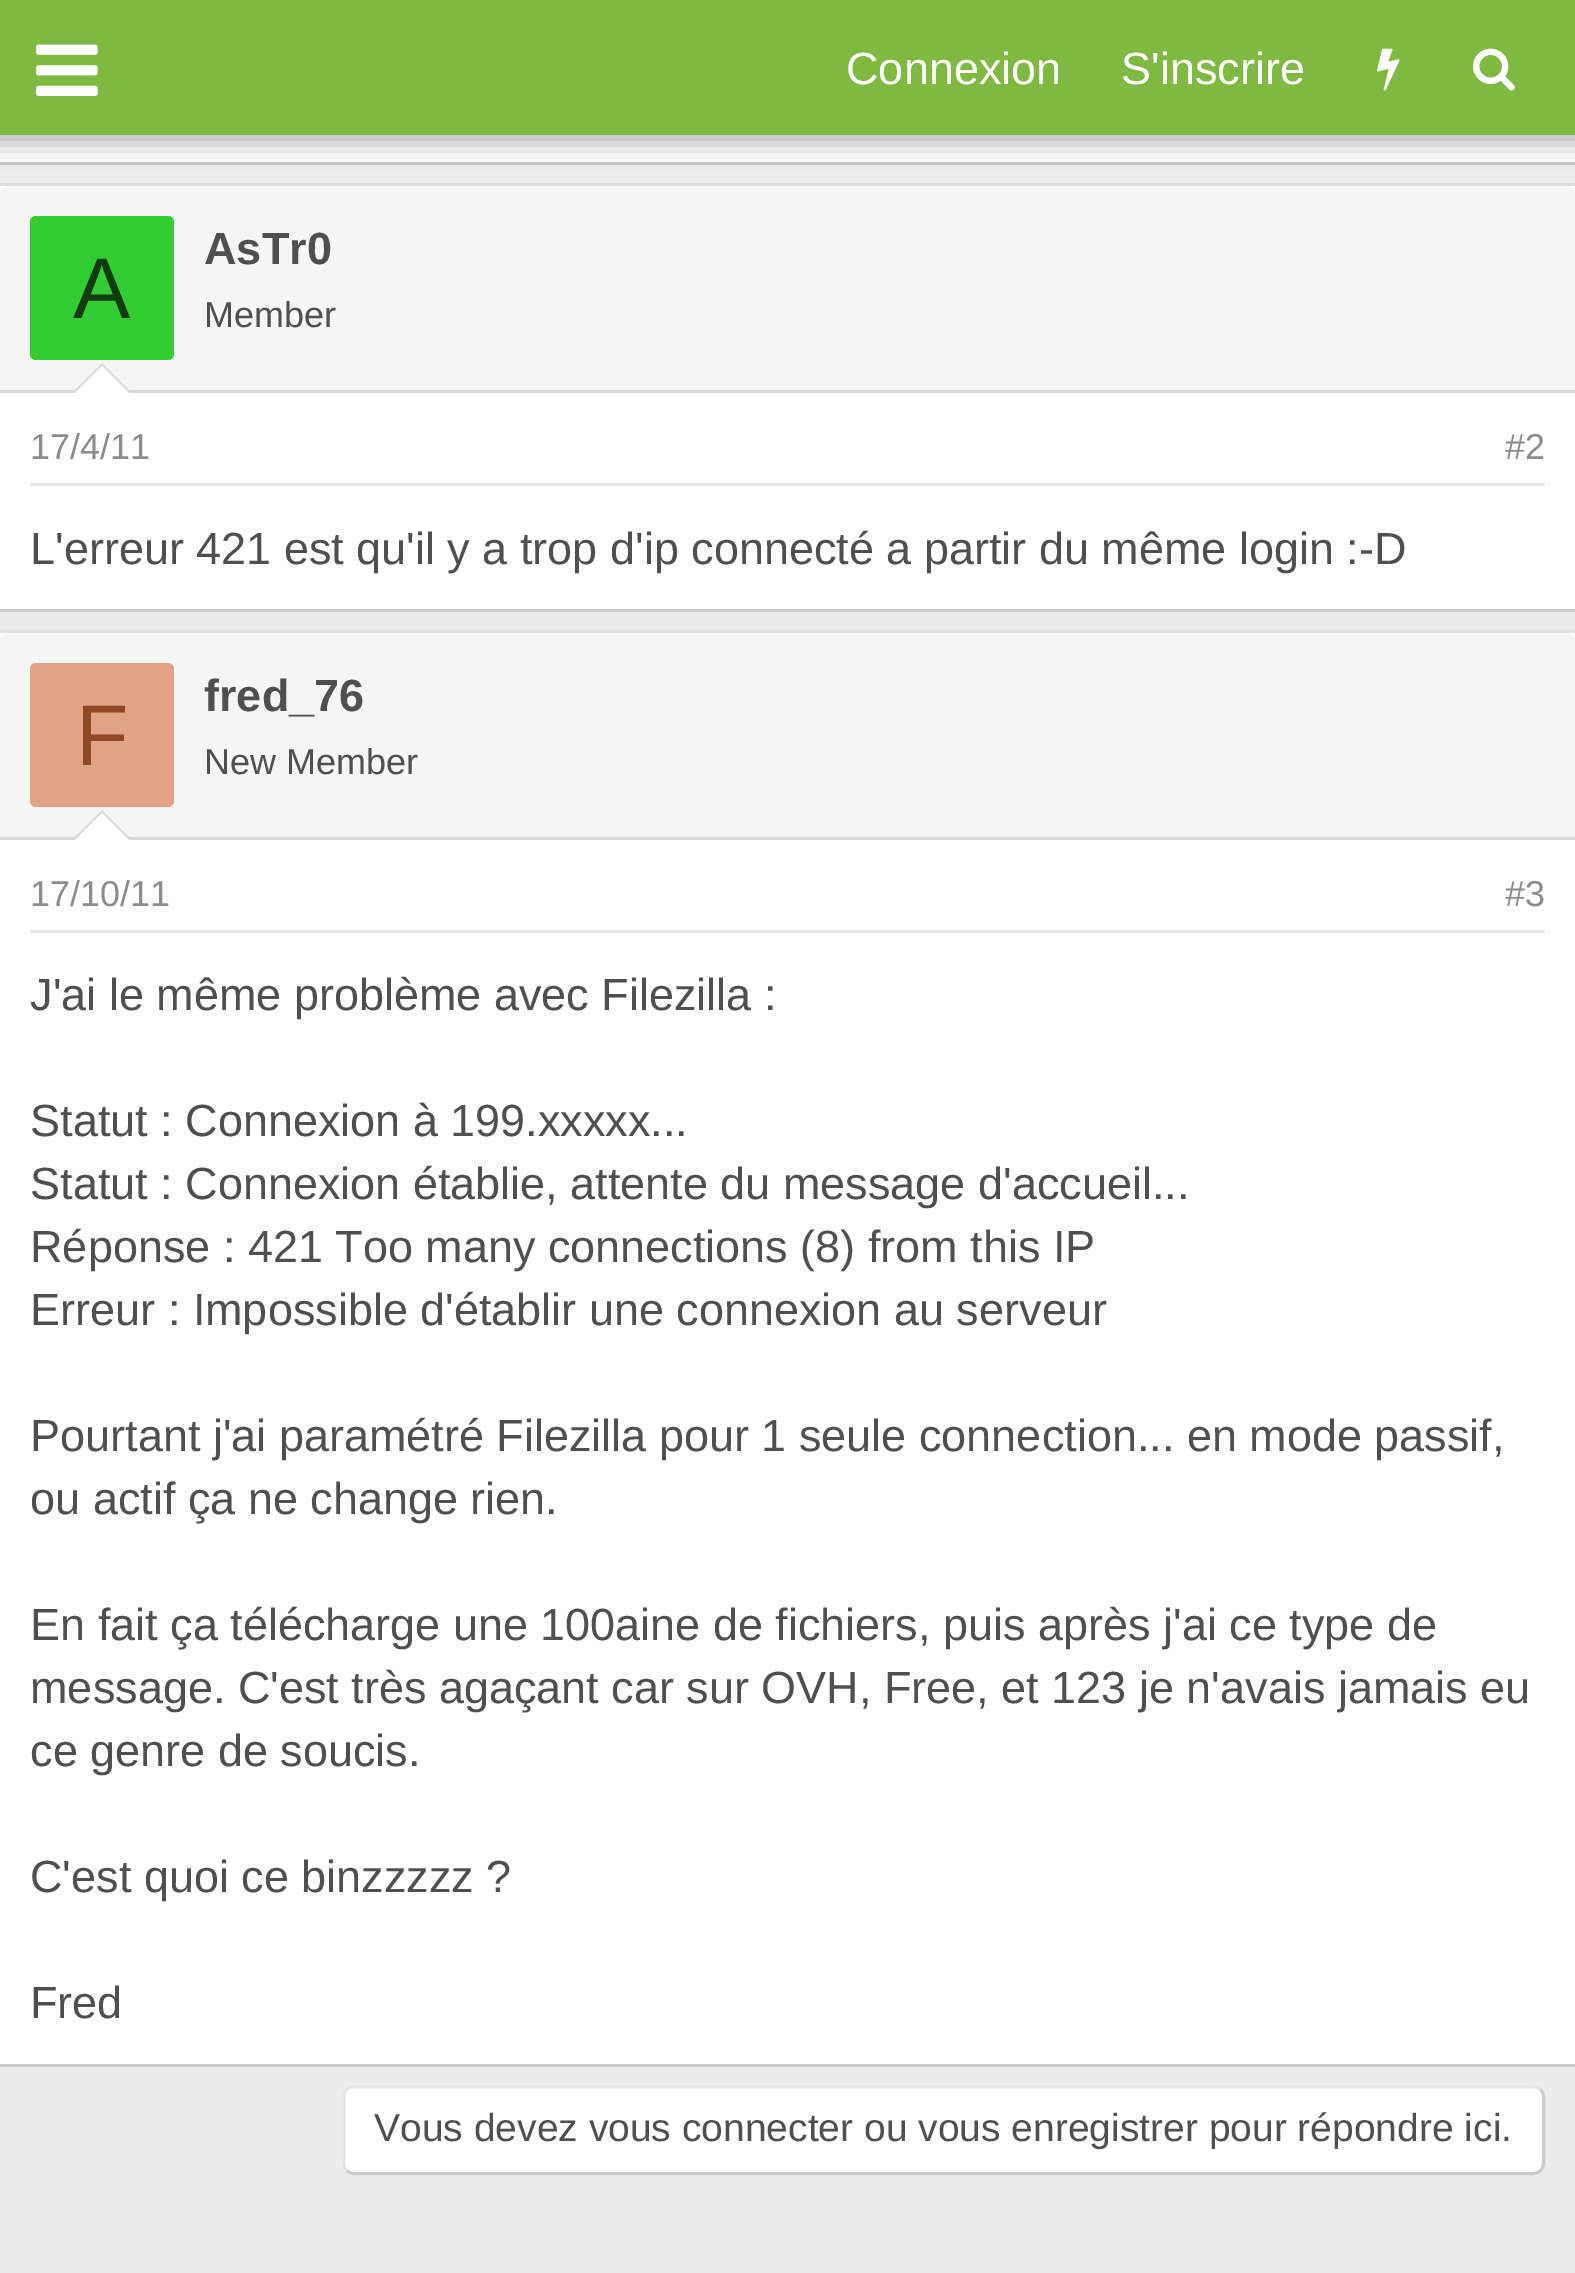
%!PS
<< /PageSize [1575 2273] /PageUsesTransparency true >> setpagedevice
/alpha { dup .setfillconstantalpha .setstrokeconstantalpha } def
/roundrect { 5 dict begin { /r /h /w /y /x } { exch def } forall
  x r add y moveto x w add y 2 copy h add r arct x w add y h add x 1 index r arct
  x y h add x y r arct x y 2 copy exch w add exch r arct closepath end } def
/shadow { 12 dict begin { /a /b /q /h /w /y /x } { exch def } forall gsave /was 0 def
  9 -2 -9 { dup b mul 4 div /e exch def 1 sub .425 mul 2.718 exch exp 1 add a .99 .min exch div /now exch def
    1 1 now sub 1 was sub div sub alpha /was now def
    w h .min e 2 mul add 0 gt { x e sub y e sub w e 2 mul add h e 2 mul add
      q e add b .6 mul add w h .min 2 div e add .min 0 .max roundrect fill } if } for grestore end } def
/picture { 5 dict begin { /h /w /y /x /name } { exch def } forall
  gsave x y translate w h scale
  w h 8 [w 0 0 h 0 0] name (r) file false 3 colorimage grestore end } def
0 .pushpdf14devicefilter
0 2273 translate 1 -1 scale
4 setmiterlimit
0.925 setgray
0 0 1575 2273 rectfill
0.996 setgray
0 135 1575 27 rectfill
0.796 setgray
0 162 1575 3 rectfill
0 setgray
-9 -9 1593 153 0 12 0.3 shadow
0.502 0.725 0.255 setrgbcolor
0 0 1575 135 rectfill
(img1.rgb) 36 44 62 52 picture
/LiberationSans-Regular [45 0 0 -45 0 0] selectfont
1 setgray
846 84 moveto (Connexion) show
1121 84 moveto (S'inscrire) show
(img2.rgb) 1377 48 23 43 picture
(img3.rgb) 1473 48 42 43 picture
0.996 setgray
0 186 1575 423 rectfill
0.875 setgray
0 183 1575 3 rectfill
0.796 setgray
0 609 1575 3 rectfill
0.961 setgray
newpath 9 186 moveto 1566 186 lineto 1571 186 1575 190 1575 195 curveto 1575 393 lineto 0 393 lineto 0 195 lineto 0 190 4 186 9 186 curveto closepath fill
0.847 setgray
0 390 1575 3 rectfill
0.2 0.8 0.2 setrgbcolor
30 216 144 144 6 roundrect fill
/LiberationSans-Regular [86 0 0 -86 0 0] selectfont
0.059 0.239 0.059 setrgbcolor
73 318 moveto (A) show
/LiberationSans-Bold [45 0 0 -45 0 0] selectfont
0.31 setgray
204 264 moveto (AsTr0) show
/LiberationSans-Regular [36 0 0 -36 0 0] selectfont
204 327 moveto (Member) show
0.847 setgray
newpath 132 393 moveto 72 393 lineto 102 363 lineto closepath fill
0.996 setgray
newpath 129 393 moveto 75 393 lineto 102 366 lineto closepath fill
0.906 setgray
30 483 1515 3 rectfill
0.549 setgray
30 459 moveto (17/4/11) show
1505 459 moveto (#2) show
/LiberationSans-Regular [45 0 0 -45 0 0] selectfont
0.31 setgray
30 564 moveto (L'erreur 421 est qu'il y a trop d'ip connecté a partir du même login :-D) show
0.996 setgray
0 633 1575 1431 rectfill
0.875 setgray
0 630 1575 3 rectfill
0.796 setgray
0 2064 1575 3 rectfill
0.961 setgray
newpath 9 633 moveto 1566 633 lineto 1571 633 1575 637 1575 642 curveto 1575 840 lineto 0 840 lineto 0 642 lineto 0 637 4 633 9 633 curveto closepath fill
0.847 setgray
0 837 1575 3 rectfill
0.878 0.639 0.522 setrgbcolor
30 663 144 144 6 roundrect fill
/LiberationSans-Regular [86 0 0 -86 0 0] selectfont
0.561 0.278 0.141 setrgbcolor
76 765 moveto (F) show
/LiberationSans-Bold [45 0 0 -45 0 0] selectfont
0.31 setgray
204 711 moveto (fred_76) show
/LiberationSans-Regular [36 0 0 -36 0 0] selectfont
204 774 moveto (New Member) show
0.847 setgray
newpath 132 840 moveto 72 840 lineto 102 810 lineto closepath fill
0.996 setgray
newpath 129 840 moveto 75 840 lineto 102 813 lineto closepath fill
0.906 setgray
30 930 1515 3 rectfill
0.549 setgray
30 906 moveto (17/10/11) show
1505 906 moveto (#3) show
/LiberationSans-Regular [45 0 0 -45 0 0] selectfont
0.31 setgray
30 1010 moveto (J'ai le même problème avec Filezilla :) show
30 1136 moveto (Statut : Connexion à 199.xxxxx...) show
30 1199 moveto (Statut : Connexion établie, attente du message d'accueil...) show
30 1262 moveto (Réponse : 421 Too many connections \(8\) from this IP) show
30 1325 moveto (Erreur : Impossible d'établir une connexion au serveur) show
30 1451 moveto (Pourtant j'ai paramétré Filezilla pour 1 seule connection... en mode passif,) show
30 1514 moveto (ou actif ça ne change rien.) show
30 1640 moveto (En fait ça télécharge une 100aine de fichiers, puis après j'ai ce type de) show
30 1703 moveto (message. C'est très agaçant car sur OVH, Free, et 123 je n'avais jamais eu) show
30 1766 moveto (ce genre de soucis.) show
30 1892 moveto (C'est quoi ce binzzzzz ?) show
30 2018 moveto (Fred) show
0.996 setgray
342 2085 1203 90 12 roundrect fill
0.796 setgray
3 setlinewidth
newpath 1540.5 2089.5 moveto 1542.5 2091.5 1543.5 2094 1543.5 2097 curveto 1543.5 2163 lineto 1543.5 2166 1542.5 2168.5 1540.5 2170.5 curveto 1538.5 2172.5 1536 2173.5 1533 2173.5 curveto 354 2173.5 lineto 351 2173.5 348.5 2172.5 346.5 2170.5 curveto stroke
0.898 setgray
newpath 346.5 2170.5 moveto 344.5 2168.5 343.5 2166 343.5 2163 curveto 343.5 2097 lineto 343.5 2094 344.5 2091.5 346.5 2089.5 curveto 348.5 2087.5 351 2086.5 354 2086.5 curveto 1533 2086.5 lineto 1536 2086.5 1538.5 2087.5 1540.5 2089.5 curveto stroke
/LiberationSans-Regular [39 0 0 -39 0 0] selectfont
0.31 setgray
374 2141 moveto (Vous devez vous connecter ou vous enregistrer pour répondre ici.) show
.poppdf14devicefilter showpage
